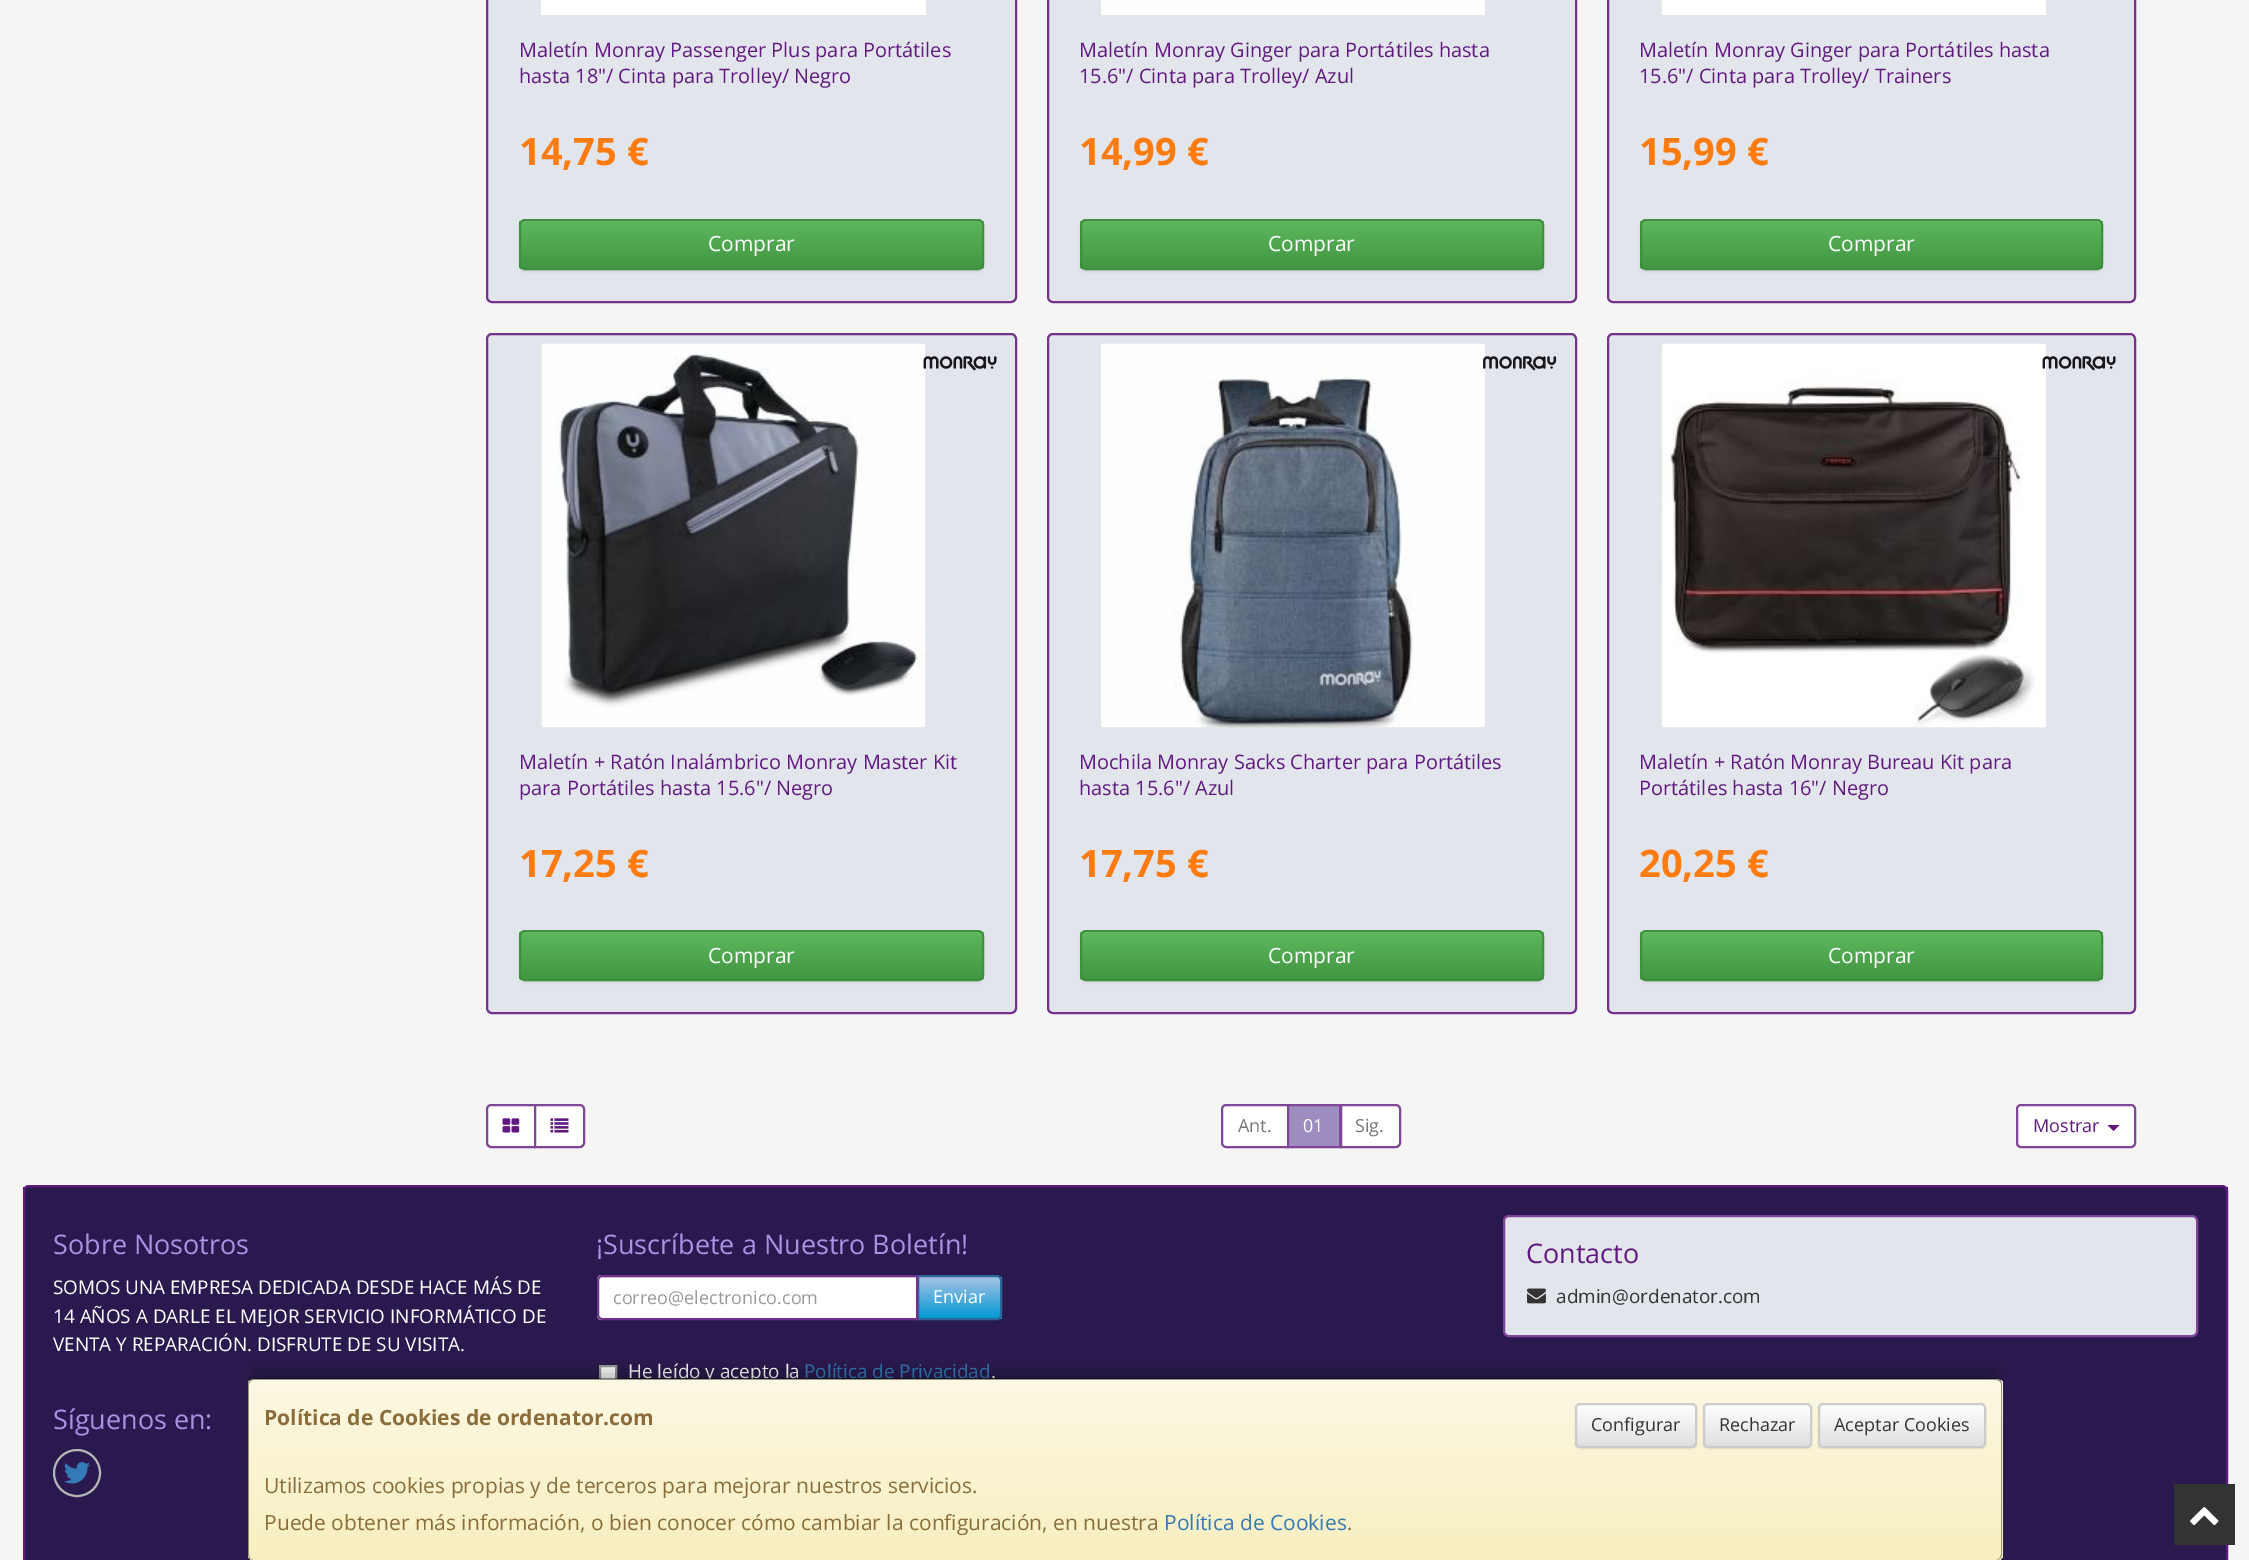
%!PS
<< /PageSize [2249 1560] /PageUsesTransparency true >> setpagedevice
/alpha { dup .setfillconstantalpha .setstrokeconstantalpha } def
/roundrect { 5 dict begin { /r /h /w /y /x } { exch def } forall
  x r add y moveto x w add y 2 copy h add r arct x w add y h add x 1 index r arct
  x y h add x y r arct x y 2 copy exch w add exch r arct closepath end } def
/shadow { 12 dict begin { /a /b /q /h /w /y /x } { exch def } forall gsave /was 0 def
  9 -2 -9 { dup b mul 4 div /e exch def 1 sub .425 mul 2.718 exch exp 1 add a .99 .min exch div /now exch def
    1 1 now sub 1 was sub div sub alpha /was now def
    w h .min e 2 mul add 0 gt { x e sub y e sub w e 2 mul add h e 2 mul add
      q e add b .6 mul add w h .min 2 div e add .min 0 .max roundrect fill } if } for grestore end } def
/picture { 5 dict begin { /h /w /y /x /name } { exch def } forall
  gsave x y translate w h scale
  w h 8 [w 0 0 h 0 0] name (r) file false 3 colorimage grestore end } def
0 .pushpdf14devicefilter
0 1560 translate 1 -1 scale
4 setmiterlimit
0.961 setgray
0 0 2249 1560 rectfill
0.886 0.898 0.925 setrgbcolor
487 -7 529 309 5 roundrect gsave fill grestore
0.451 0.2 0.553 setrgbcolor
2 setlinewidth
stroke
1 setgray
541 0 385 15 rectfill
/OpenSans-Regular [19.95 0 0 -19.95 0 0] selectfont
0.38 0.098 0.498 setrgbcolor
519 57 moveto (Maletín Monray Passenger Plus para Portátiles) show
519 83 moveto (hasta 18"/ Cinta para Trolley/ Negro) show
/OpenSans-Bold [38 0 0 -38 0 0] selectfont
1 0.482 0.051 setrgbcolor
519 165 moveto (14,75 €) show
0 setgray
519 221 465 51 6 1 0.07 shadow
gsave
519 219 465 51 6 roundrect clip newpath
gsave newpath 519 221 moveto 984 221 lineto 984 269 lineto 519 269 lineto closepath clip newpath
<< /ShadingType 2 /ColorSpace /DeviceRGB /Coords [752 220 752 269] /Extend [true true] /Function << /FunctionType 2 /Domain [0 1] /C0 [0.361 0.722 0.361] /C1 [0.255 0.588 0.255] /N 1 >> >> shfill grestore
grestore
0.15 alpha
1 setgray
newpath 525 222 moveto 978 222 lineto 980 222 982 224 982 226 curveto 982 267 lineto 983 266 983 265 983 264 curveto 983 226 lineto 983 223 981 221 978 221 curveto 526 221 lineto 524 221 523 222 522 223 curveto closepath fill
1 alpha
0.243 0.561 0.243 setrgbcolor
520 220 463 49 5 roundrect stroke
/OpenSans-Regular [21 0 0 -21 0 0] selectfont
1 setgray
708 251 moveto (Comprar) show
0.886 0.898 0.925 setrgbcolor
1048 -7 528 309 5 roundrect gsave fill grestore
0.451 0.2 0.553 setrgbcolor
stroke
0.996 setgray
1101 0 384 15 rectfill
/OpenSans-Regular [19.95 0 0 -19.95 0 0] selectfont
0.38 0.098 0.498 setrgbcolor
1079 57 moveto (Maletín Monray Ginger para Portátiles hasta) show
1079 83 moveto (15.6"/ Cinta para Trolley/ Azul) show
/OpenSans-Bold [38 0 0 -38 0 0] selectfont
1 0.482 0.051 setrgbcolor
1079 165 moveto (14,99 €) show
0 setgray
1080 221 464 51 6 1 0.07 shadow
gsave
1080 219 464 51 6 roundrect clip newpath
gsave newpath 1080 221 moveto 1544 221 lineto 1544 269 lineto 1080 269 lineto closepath clip newpath
<< /ShadingType 2 /ColorSpace /DeviceRGB /Coords [1312 220 1312 269] /Extend [true true] /Function << /FunctionType 2 /Domain [0 1] /C0 [0.361 0.722 0.361] /C1 [0.255 0.588 0.255] /N 1 >> >> shfill grestore
grestore
0.455 0.761 0.455 setrgbcolor
newpath 1086 222 moveto 1538 222 lineto 1540 222 1542 224 1542 226 curveto 1542 223 1540 221 1537 221 curveto 1087 221 lineto 1084 221 1082 223 1082 226 curveto 1082 224 1084 222 1086 222 curveto closepath fill
0.243 0.561 0.243 setrgbcolor
1081 220 462 49 5 roundrect stroke
/OpenSans-Regular [21 0 0 -21 0 0] selectfont
1 setgray
1268 251 moveto (Comprar) show
0.886 0.898 0.925 setrgbcolor
1608 -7 527 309 5 roundrect gsave fill grestore
0.451 0.2 0.553 setrgbcolor
stroke
1 setgray
1662 0 384 15 rectfill
/OpenSans-Regular [19.95 0 0 -19.95 0 0] selectfont
0.38 0.098 0.498 setrgbcolor
1639 57 moveto (Maletín Monray Ginger para Portátiles hasta) show
1639 83 moveto (15.6"/ Cinta para Trolley/ Trainers) show
/OpenSans-Bold [38 0 0 -38 0 0] selectfont
1 0.482 0.051 setrgbcolor
1639 165 moveto (15,99 €) show
0 setgray
1640 221 463 51 6 1 0.07 shadow
gsave
1640 219 463 51 6 roundrect clip newpath
gsave newpath 1640 221 moveto 2103 221 lineto 2103 269 lineto 1640 269 lineto closepath clip newpath
<< /ShadingType 2 /ColorSpace /DeviceRGB /Coords [1871 220 1871 269] /Extend [true true] /Function << /FunctionType 2 /Domain [0 1] /C0 [0.361 0.722 0.361] /C1 [0.255 0.588 0.255] /N 1 >> >> shfill grestore
grestore
0.455 0.761 0.455 setrgbcolor
newpath 1646 222 moveto 2097 222 lineto 2099 222 2102 224 2102 226 curveto 2102 223 2100 221 2097 221 curveto 1646 221 lineto 1643 221 1641 223 1641 226 curveto 1641 224 1643 222 1646 222 curveto closepath fill
0.243 0.561 0.243 setrgbcolor
1641 220 461 49 5 roundrect stroke
/OpenSans-Regular [21 0 0 -21 0 0] selectfont
1 setgray
1828 251 moveto (Comprar) show
0.886 0.898 0.925 setrgbcolor
487 334 529 679 5 roundrect gsave fill grestore
0.451 0.2 0.553 setrgbcolor
stroke
(img1.rgb) 541 343 385 385 picture
(img2.rgb) 923 356 74 15 picture
/OpenSans-Regular [19.95 0 0 -19.95 0 0] selectfont
0.38 0.098 0.498 setrgbcolor
519 769 moveto (Maletín + Ratón Inalámbrico Monray Master Kit) show
519 795 moveto (para Portátiles hasta 15.6"/ Negro) show
/OpenSans-Bold [38 0 0 -38 0 0] selectfont
1 0.482 0.051 setrgbcolor
519 877 moveto (17,25 €) show
0 setgray
519 932 465 51 6 1 0.07 shadow
gsave
519 930 465 51 6 roundrect clip newpath
gsave newpath 519 932 moveto 984 932 lineto 984 980 lineto 519 980 lineto closepath clip newpath
<< /ShadingType 2 /ColorSpace /DeviceRGB /Coords [752 932 752 980] /Extend [true true] /Function << /FunctionType 2 /Domain [0 1] /C0 [0.361 0.722 0.361] /C1 [0.255 0.588 0.255] /N 1 >> >> shfill grestore
grestore
0.15 alpha
1 setgray
newpath 525 933 moveto 978 933 lineto 980 933 982 935 982 938 curveto 982 976 lineto 981 979 lineto 982 978 983 976 983 975 curveto 983 937 lineto 983 934 981 932 978 932 curveto 526 932 lineto 524 932 523 933 522 934 curveto closepath fill
1 alpha
0.243 0.561 0.243 setrgbcolor
520 931 463 49 5 roundrect stroke
/OpenSans-Regular [21 0 0 -21 0 0] selectfont
1 setgray
708 963 moveto (Comprar) show
0.886 0.898 0.925 setrgbcolor
1048 334 528 679 5 roundrect gsave fill grestore
0.451 0.2 0.553 setrgbcolor
stroke
(img3.rgb) 1101 343 384 385 picture
(img4.rgb) 1483 356 74 15 picture
/OpenSans-Regular [19.95 0 0 -19.95 0 0] selectfont
0.38 0.098 0.498 setrgbcolor
1079 769 moveto (Mochila Monray Sacks Charter para Portátiles) show
1079 795 moveto (hasta 15.6"/ Azul) show
/OpenSans-Bold [38 0 0 -38 0 0] selectfont
1 0.482 0.051 setrgbcolor
1079 877 moveto (17,75 €) show
0 setgray
1080 932 464 51 6 1 0.07 shadow
gsave
1080 930 464 51 6 roundrect clip newpath
gsave newpath 1080 932 moveto 1544 932 lineto 1544 980 lineto 1080 980 lineto closepath clip newpath
<< /ShadingType 2 /ColorSpace /DeviceRGB /Coords [1312 932 1312 980] /Extend [true true] /Function << /FunctionType 2 /Domain [0 1] /C0 [0.361 0.722 0.361] /C1 [0.255 0.588 0.255] /N 1 >> >> shfill grestore
grestore
0.455 0.765 0.455 setrgbcolor
newpath 1086 933 moveto 1538 933 lineto 1540 933 1542 935 1542 938 curveto 1542 935 1540 932 1537 932 curveto 1087 932 lineto 1084 932 1082 935 1082 938 curveto 1082 935 1084 933 1086 933 curveto closepath fill
0.243 0.561 0.243 setrgbcolor
1081 931 462 49 5 roundrect stroke
/OpenSans-Regular [21 0 0 -21 0 0] selectfont
1 setgray
1268 963 moveto (Comprar) show
0.886 0.898 0.925 setrgbcolor
1608 334 527 679 5 roundrect gsave fill grestore
0.451 0.2 0.553 setrgbcolor
stroke
(img5.rgb) 1662 343 384 385 picture
(img6.rgb) 2042 356 74 15 picture
/OpenSans-Regular [19.95 0 0 -19.95 0 0] selectfont
0.38 0.098 0.498 setrgbcolor
1639 769 moveto (Maletín + Ratón Monray Bureau Kit para) show
1639 795 moveto (Portátiles hasta 16"/ Negro) show
/OpenSans-Bold [38 0 0 -38 0 0] selectfont
1 0.482 0.051 setrgbcolor
1639 877 moveto (20,25 €) show
0 setgray
1640 932 463 51 6 1 0.07 shadow
gsave
1640 930 463 51 6 roundrect clip newpath
gsave newpath 1640 932 moveto 2103 932 lineto 2103 980 lineto 1640 980 lineto closepath clip newpath
<< /ShadingType 2 /ColorSpace /DeviceRGB /Coords [1871 932 1871 980] /Extend [true true] /Function << /FunctionType 2 /Domain [0 1] /C0 [0.361 0.722 0.361] /C1 [0.255 0.588 0.255] /N 1 >> >> shfill grestore
grestore
0.455 0.765 0.455 setrgbcolor
newpath 1646 933 moveto 2097 933 lineto 2099 933 2102 935 2102 938 curveto 2102 935 2100 932 2097 932 curveto 1646 932 lineto 1643 932 1641 935 1641 938 curveto 1641 935 1643 933 1646 933 curveto closepath fill
0.243 0.561 0.243 setrgbcolor
1641 931 461 49 5 roundrect stroke
/OpenSans-Regular [21 0 0 -21 0 0] selectfont
1 setgray
1828 963 moveto (Comprar) show
newpath 491 1105 moveto 535 1105 lineto 535 1147 lineto 491 1147 lineto 489 1147 487 1145 487 1143 curveto 487 1109 lineto 487 1107 489 1105 491 1105 curveto closepath gsave fill grestore
0.498 0.275 0.592 setrgbcolor
stroke
(img7.rgb) 502 1118 18 15 picture
1 setgray
newpath 535 1105 moveto 580 1105 lineto 582 1105 584 1107 584 1109 curveto 584 1143 lineto 584 1145 582 1147 580 1147 curveto 535 1147 lineto closepath gsave fill grestore
0.498 0.275 0.592 setrgbcolor
stroke
(img8.rgb) 550 1118 19 15 picture
1 setgray
newpath 1226 1105 moveto 1288 1105 lineto 1288 1147 lineto 1226 1147 lineto 1224 1147 1222 1145 1222 1143 curveto 1222 1109 lineto 1222 1107 1224 1105 1226 1105 curveto closepath gsave fill grestore
0.498 0.275 0.592 setrgbcolor
stroke
/OpenSans-Regular [18 0 0 -18 0 0] selectfont
0.467 setgray
1238 1132 moveto (Ant.) show
1 setgray
newpath 1341 1105 moveto 1396 1105 lineto 1398 1105 1400 1107 1400 1109 curveto 1400 1143 lineto 1400 1145 1398 1147 1396 1147 curveto 1341 1147 lineto closepath gsave fill grestore
0.498 0.275 0.592 setrgbcolor
stroke
0.62 0.557 0.749 setrgbcolor
newpath 1288 1105 moveto 1340 1105 lineto 1340 1147 lineto 1288 1147 lineto closepath gsave fill grestore
0.498 0.275 0.592 setrgbcolor
stroke
1 setgray
1303 1132 moveto (01) show
0.467 setgray
1355 1132 moveto (Sig.) show
1 setgray
2017 1105 118 42 4 roundrect gsave fill grestore
0.498 0.275 0.592 setrgbcolor
stroke
0.38 0.098 0.498 setrgbcolor
2033 1132 moveto (Mostrar) show
newpath 2107.5 1125 moveto 2119.5 1125 lineto 2113.5 1131 lineto closepath fill
gsave
23 1185 2205 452 6 roundrect clip newpath
0.165 0.098 0.31 setrgbcolor
23 1187 2205 373 rectfill
grestore
24 1186 2203 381 5 roundrect stroke
/OpenSans-Regular [27 0 0 -27 0 0] selectfont
0.667 0.569 0.894 setrgbcolor
53 1254 moveto (Sobre Nosotros) show
/OpenSans-Regular [18.9 0 0 -18.9 0 0] selectfont
1 setgray
53 1294 moveto (SOMOS UNA EMPRESA DEDICADA DESDE HACE MÁS DE) show
53 1323 moveto (14 AÑOS A DARLE EL MEJOR SERVICIO INFORMÁTICO DE) show
53 1351 moveto (VENTA Y REPARACIÓN. DISFRUTE DE SU VISITA.) show
/OpenSans-Regular [27 0 0 -27 0 0] selectfont
0.667 0.569 0.894 setrgbcolor
53 1429 moveto (Síguenos en:) show
0.71 setgray
newpath 77 1473 23 0 360 arc closepath stroke
(img9.rgb) 64 1462 26 22 picture
0.667 0.569 0.894 setrgbcolor
596 1254 moveto (¡Suscríbete a Nuestro Boletín!) show
gsave
newpath 917 1275 moveto 997 1275 lineto 1000 1275 1002 1277 1002 1280 curveto 1002 1315 lineto 1002 1318 1000 1320 997 1320 curveto 917 1320 lineto closepath clip newpath
gsave newpath 919 1277 moveto 1002 1277 lineto 1002 1319 lineto 919 1319 lineto closepath clip newpath
<< /ShadingType 2 /ColorSpace /DeviceRGB /Coords [959 1277 959 1319] /Extend [true true] /Function << /FunctionType 2 /Domain [0 1] /C0 [0.647 0.761 0.89] /C1 [0 0.596 0.831] /N 1 >> >> shfill grestore
grestore
0.15 alpha
1 setgray
newpath 918 1278 moveto 985 1278 lineto 1003 1278 1000 1275 1000 1293 curveto 1000 1318 lineto 1001 1318 1001 1317 1001 1316 curveto 1001 1280 lineto 1001 1278 1000 1277 998 1277 curveto 918 1277 lineto closepath fill
1 alpha
0.169 0.4 0.604 setrgbcolor
newpath 918 1276 moveto 997 1276 lineto 999 1276 1001 1278 1001 1280 curveto 1001 1315 lineto 1001 1317 999 1319 997 1319 curveto 918 1319 lineto closepath stroke
1 setgray
newpath 602 1275 moveto 918 1275 lineto 918 1320 lineto 602 1320 lineto 599 1320 597 1318 597 1315 curveto 597 1280 lineto 597 1277 599 1275 602 1275 curveto closepath fill
0.925 setgray
newpath 602 1278 moveto 916 1278 lineto 916 1319 lineto 917 1319 lineto 917 1277 lineto 602 1277 lineto 601 1277 600 1278 599 1279 curveto closepath fill
0.451 0.2 0.553 setrgbcolor
newpath 602 1276 moveto 917 1276 lineto 917 1319 lineto 602 1319 lineto 600 1319 598 1317 598 1315 curveto 598 1280 lineto 598 1278 600 1276 602 1276 curveto closepath stroke
gsave
614 1284 288 26 rectclip
/OpenSans-Regular [18 0 0 -18 0 0] selectfont
0.6 setgray
613 1304 moveto (correo@electronico.com) show
grestore
/OpenSans-Regular [18 0 0 -18 0 0] selectfont
1 setgray
933 1303 moveto (Enviar) show
601 1367 14 12 rectfill
0.6 setgray
600 1366 16 16 rectstroke
/OpenSans-Regular [18.9 0 0 -18.9 0 0] selectfont
1 setgray
628 1378 moveto (He leído y acepto la) show
0.2 0.478 0.718 setrgbcolor
804 1378 moveto (Política de Privacidad) show
1 setgray
991 1378 moveto (.) show
0.886 0.898 0.925 setrgbcolor
1504 1216 693 120 5 roundrect gsave fill grestore
0.498 0.275 0.592 setrgbcolor
stroke
/OpenSans-Regular [27 0 0 -27 0 0] selectfont
0.38 0.098 0.498 setrgbcolor
1526 1263 moveto (Contacto) show
(img10.rgb) 1527 1288 19 16 picture
/OpenSans-Regular [18.9 0 0 -18.9 0 0] selectfont
0.2 setgray
1556 1303 moveto (admin@ordenator.com) show
0 setgray
255 1371 1740 167 0 7.5 0.25 shadow
0.988 0.973 0.89 setrgbcolor
248 1379 1755 181 6 roundrect fill
gsave
248 1379 1755 181 6 roundrect clip newpath
gsave newpath 248 1380 moveto 2003 1380 lineto 2003 1554 lineto 2003 1557.5 2000.5 1560 1997 1560 curveto 254 1560 lineto 250.5 1560 248 1557.5 248 1554 curveto closepath clip newpath
<< /ShadingType 2 /ColorSpace /DeviceRGB /Coords [1125 1380 1125 1560] /Extend [true true] /Function << /FunctionType 2 /Domain [0 1] /C0 [0.988 0.973 0.89] /C1 [0.973 0.937 0.753] /N 1 >> >> shfill grestore
grestore
0.4 alpha
0 setgray
newpath 254 1378 moveto 1996 1378 lineto 2000 1378 2002 1381 2002 1384 curveto 2002 1554 lineto 2002 1557 2000 1560 1996 1560 curveto 254 1560 lineto 250 1560 248 1557 248 1554 curveto 248 1384 lineto 248 1381 250 1378 254 1378 curveto closepath 254 1380 moveto 1996 1380 lineto 1999 1380 2001 1382 2001 1384 curveto 2001 1554 lineto 2001 1557 1999 1560 1996 1560 curveto 254 1560 lineto 251 1560 249 1557 249 1554 curveto 249 1384 lineto 249 1382 251 1380 254 1380 curveto closepath eofill
/OpenSans-Bold [21 0 0 -21 0 0] selectfont
1 alpha
0.541 0.427 0.231 setrgbcolor
264 1425 moveto (Política de Cookies de ordenator.com) show
0 setgray
1575 1404 122 45 5 1 0.07 shadow
gsave
1575 1403 122 45 5 roundrect clip newpath
gsave newpath 1575 1404 moveto 1697 1404 lineto 1697 1446 lineto 1575 1446 lineto closepath clip newpath
<< /ShadingType 2 /ColorSpace /DeviceRGB /Coords [1636 1404 1636 1446] /Extend [true true] /Function << /FunctionType 2 /Domain [0 1] /C0 [1 1 1] /C1 [0.878 0.878 0.878] /N 1 >> >> shfill grestore
grestore
0.8 setgray
1576 1404 120 43 4 roundrect stroke
/OpenSans-Regular [18 0 0 -18 0 0] selectfont
0.2 setgray
1591 1431 moveto (Configurar) show
0 setgray
1703 1404 109 45 5 1 0.07 shadow
gsave
1703 1403 109 45 5 roundrect clip newpath
gsave newpath 1703 1404 moveto 1812 1404 lineto 1812 1446 lineto 1703 1446 lineto closepath clip newpath
<< /ShadingType 2 /ColorSpace /DeviceRGB /Coords [1757 1404 1757 1446] /Extend [true true] /Function << /FunctionType 2 /Domain [0 1] /C0 [1 1 1] /C1 [0.878 0.878 0.878] /N 1 >> >> shfill grestore
grestore
0.15 alpha
1 setgray
newpath 1707 1406 moveto 1791 1406 lineto 1813 1406 1810 1401 1810 1420 curveto 1810 1445 lineto 1811 1445 1811 1444 1811 1443 curveto 1811 1407 lineto 1811 1405 1810 1404 1808 1404 curveto 1707 1404 lineto 1705 1404 1704 1405 1704 1407 curveto 1704 1408 lineto 1704 1407 1705 1406 1707 1406 curveto closepath fill
1 alpha
0.8 setgray
1704 1404 107 43 4 roundrect stroke
0.2 setgray
1719 1431 moveto (Rechazar) show
0 setgray
1818 1404 168 45 5 1 0.07 shadow
gsave
1818 1403 168 45 5 roundrect clip newpath
gsave newpath 1818 1404 moveto 1986 1404 lineto 1986 1446 lineto 1818 1446 lineto closepath clip newpath
<< /ShadingType 2 /ColorSpace /DeviceRGB /Coords [1902 1404 1902 1446] /Extend [true true] /Function << /FunctionType 2 /Domain [0 1] /C0 [1 1 1] /C1 [0.878 0.878 0.878] /N 1 >> >> shfill grestore
grestore
0.15 alpha
1 setgray
newpath 1822 1406 moveto 1982 1406 lineto 1983 1406 1984 1407 1984 1408 curveto 1984 1445 lineto 1985 1445 1985 1444 1985 1443 curveto 1985 1407 lineto 1985 1405 1984 1404 1982 1404 curveto 1823 1404 lineto 1821 1404 1820 1405 1820 1407 curveto 1820 1408 lineto 1820 1407 1821 1406 1822 1406 curveto closepath fill
1 alpha
0.8 setgray
1819 1404 166 43 4 roundrect stroke
0.2 setgray
1834 1431 moveto (Aceptar Cookies) show
/OpenSans-Regular [21 0 0 -21 0 0] selectfont
0.541 0.427 0.231 setrgbcolor
264 1493 moveto (Utilizamos cookies propias y de terceros para mejorar nuestros servicios.) show
264 1530 moveto (Puede obtener más información, o bien conocer cómo cambiar la configuración, en nuestra) show
0.2 0.478 0.718 setrgbcolor
1164 1530 moveto (Política de Cookies) show
0.541 0.427 0.231 setrgbcolor
1347 1530 moveto (.) show
0.2 setgray
2174 1484 61 61 rectfill
(img11.rgb) 2190 1507 29 19 picture
.poppdf14devicefilter showpage
